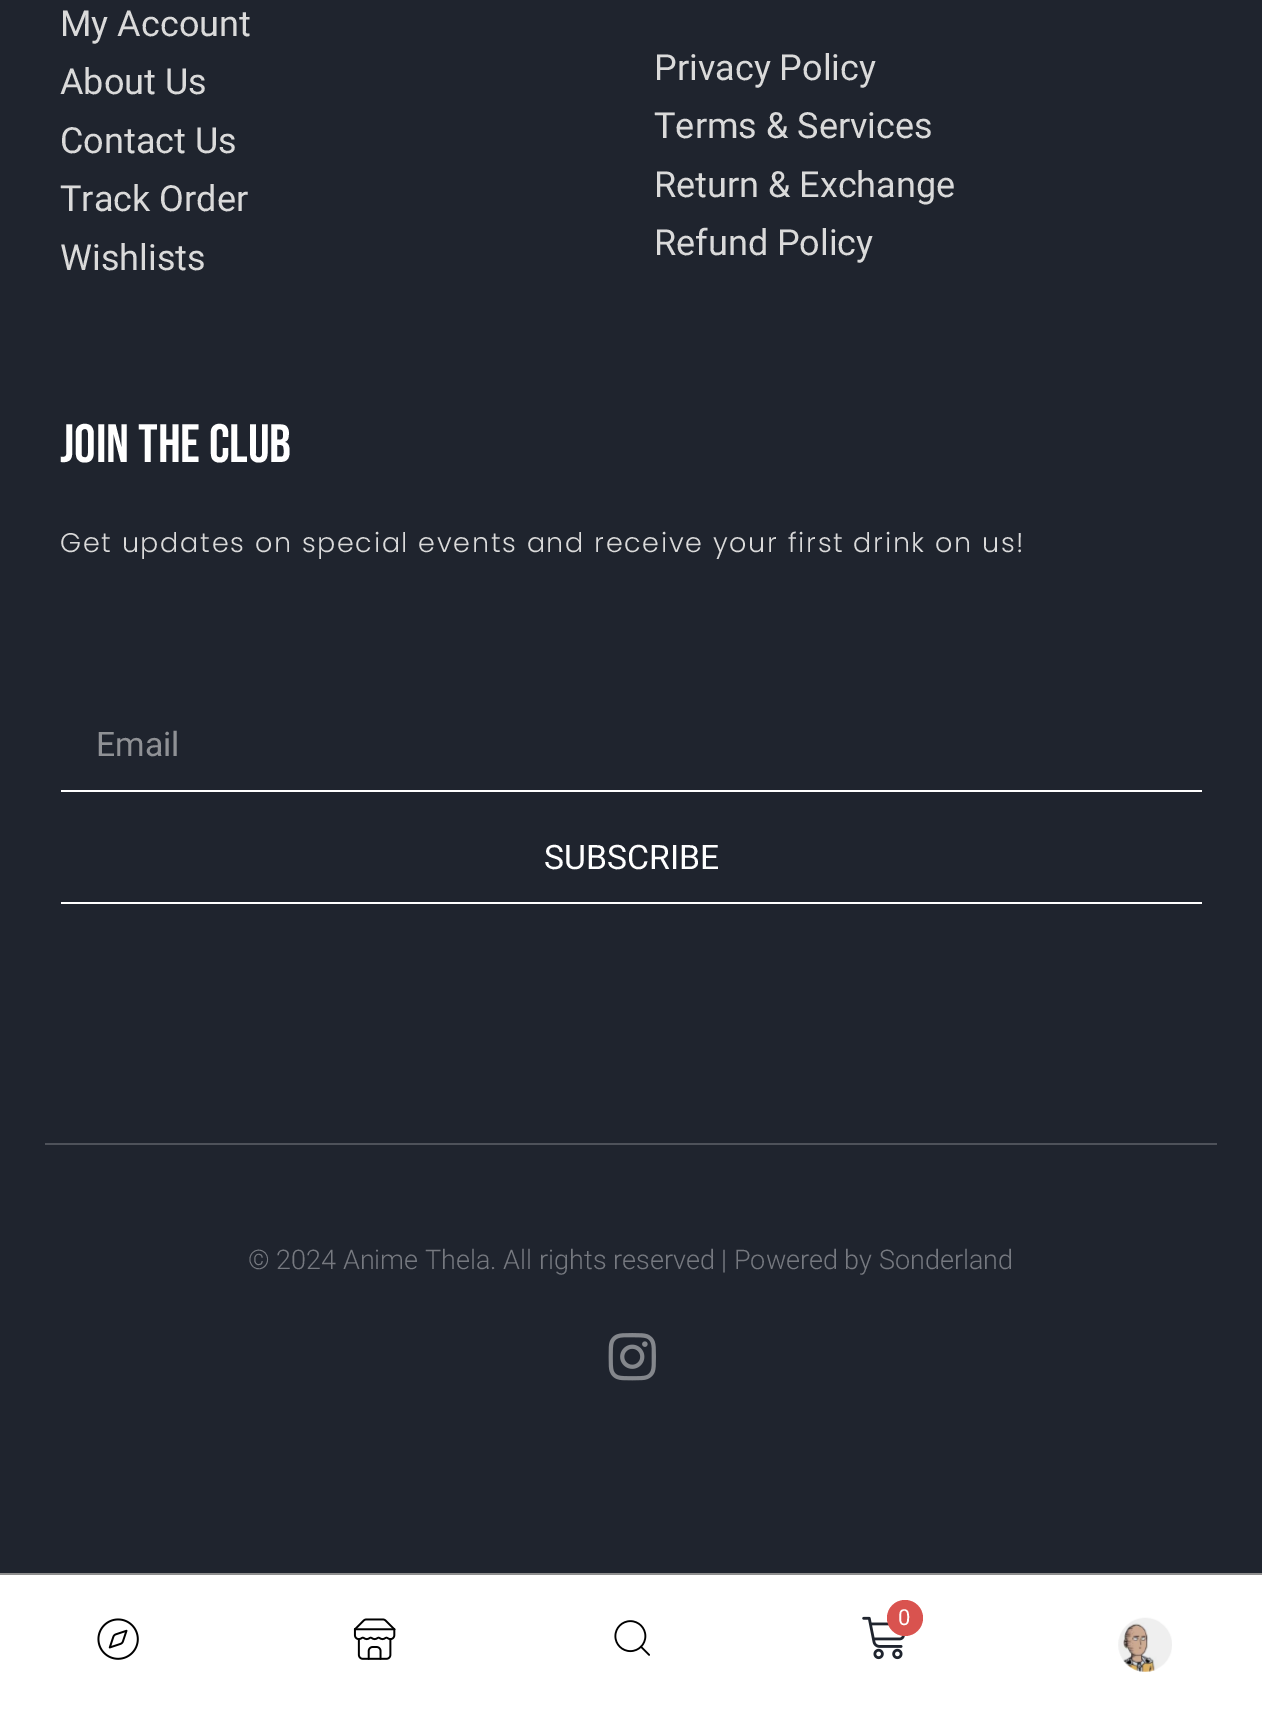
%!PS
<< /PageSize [1262 1713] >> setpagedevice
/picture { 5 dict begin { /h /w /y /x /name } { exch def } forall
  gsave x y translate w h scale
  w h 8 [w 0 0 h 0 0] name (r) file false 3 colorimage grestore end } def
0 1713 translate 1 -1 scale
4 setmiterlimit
0.122 0.141 0.18 setrgbcolor
0 0 1262 1713 rectfill
/Roboto-Regular [36 0 0 -36 0 0] selectfont
0.855 setgray
60 36 moveto (My Account) show
60 94 moveto (About Us) show
60 153 moveto (Contact Us) show
60 211 moveto (Track Order) show
60 270 moveto (Wishlists) show
654 80 moveto (Privacy Policy) show
654 138 moveto (Terms & Services) show
654 197 moveto (Return & Exchange) show
654 255 moveto (Refund Policy) show
/BebasNeue-Regular [54 0 0 -54 0 0] selectfont
1 setgray
60 462 moveto (Join The club) show
/Poppins-Light [27 0 0 -27 0 0] selectfont
0.855 setgray
60 552 moveto 1.7 0 (Get updates on special events and receive your first drink on us!) ashow
1 setgray
61 790 1141 2 rectfill
/Roboto-Regular [33.75 0 0 -33.75 0 0] selectfont
0.561 0.569 0.584 setrgbcolor
96 756 moveto (Email) show
1 setgray
61 902 1141 2 rectfill
544 869 moveto (SUBSCRIBE) show
0.306 0.322 0.353 setrgbcolor
45 1143 1172 2 rectfill
/Roboto-Light [27 0 0 -27 0 0] selectfont
0.463 0.475 0.502 setrgbcolor
248 1269 moveto (© 2024 Anime Thela. All rights reserved | Powered by Sonderland) show
(img1.rgb) 608 1333 48 48 picture
1 setgray
0 1575 1262 138 rectfill
0.557 setgray
0 1573 1262 2 rectfill
(img2.rgb) 97 1618 42 42 picture
(img3.rgb) 353 1618 43 42 picture
(img4.rgb) 614 1620 36 36 picture
(img5.rgb) 862 1616 43 44 picture
0.851 0.325 0.31 setrgbcolor
newpath 905 1618 18 0 360 arc closepath fill
/Roboto-Regular [22 0 0 -22 0 0] selectfont
1 setgray
898 1625 moveto (0) show
(img6.rgb) 1118 1617 54 55 picture
showpage
